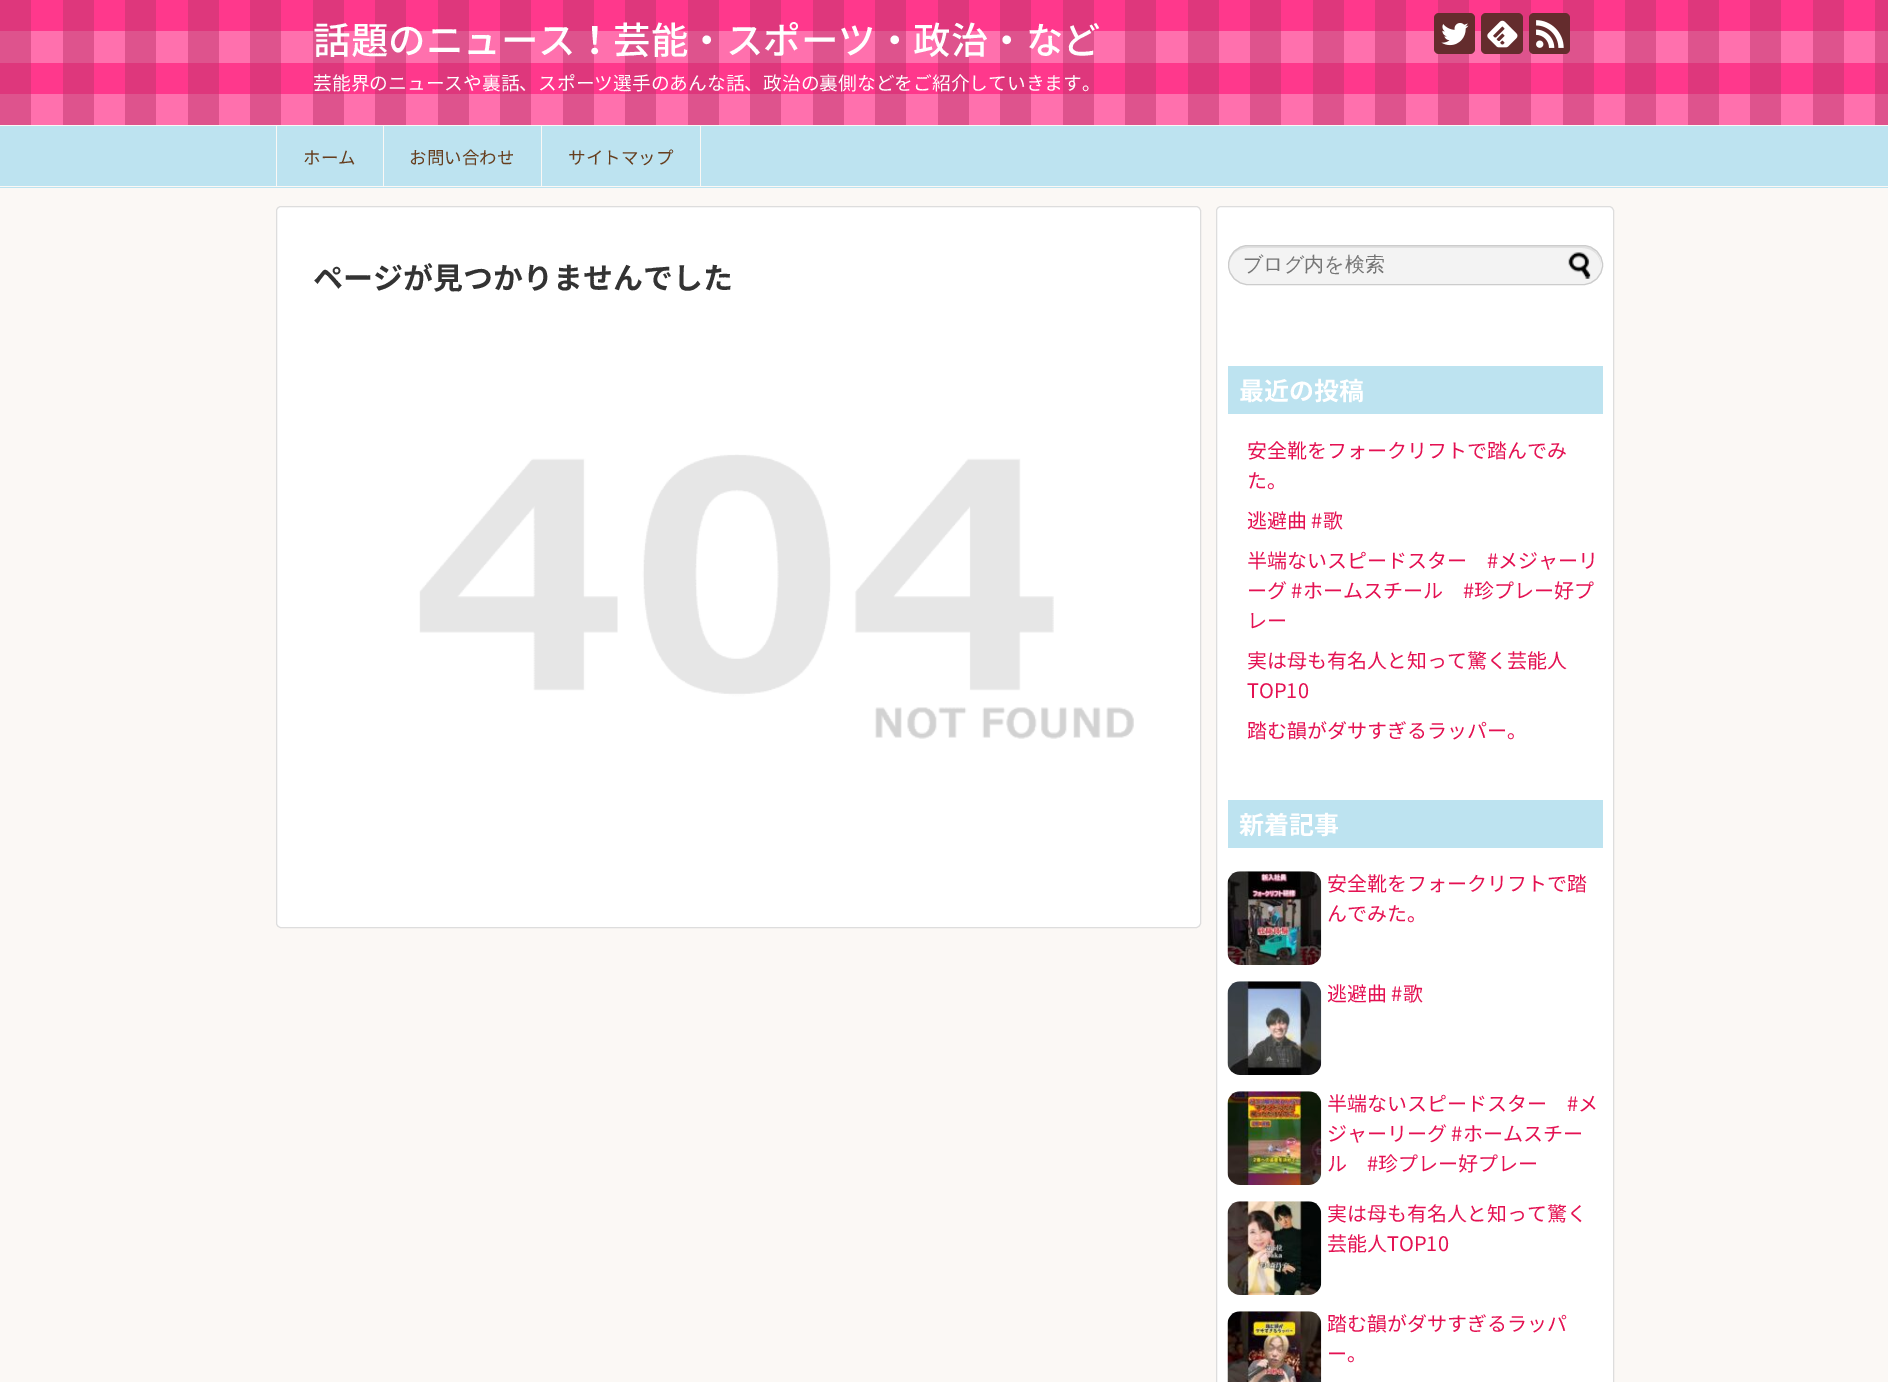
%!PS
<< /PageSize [1888 1382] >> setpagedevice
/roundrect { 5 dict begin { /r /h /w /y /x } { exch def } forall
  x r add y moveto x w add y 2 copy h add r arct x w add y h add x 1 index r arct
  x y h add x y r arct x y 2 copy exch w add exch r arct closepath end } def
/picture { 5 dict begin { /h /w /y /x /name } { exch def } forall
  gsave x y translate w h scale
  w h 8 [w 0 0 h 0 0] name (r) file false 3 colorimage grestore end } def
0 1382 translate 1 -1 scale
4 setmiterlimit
0.984 0.973 0.961 setrgbcolor
0 0 1888 1382 rectfill
1 0.439 0.678 setrgbcolor
0 31 1888 94 rectfill
1 0.22 0.549 setrgbcolor
0 0 1888 31 rectfill
0 63 1888 31 rectfill
(img1.rgb) 0 0 1888 125 picture
/NotoSansJP-Medium [37.5 0 0 -37.5 0 0] selectfont
1 setgray
313 54 moveto (話題のニュース！芸能・スポーツ・政治・など) show
/NotoSansJP-Regular [18.75 0 0 -18.75 0 0] selectfont
313 90 moveto (芸能界のニュースや裏話、スポーツ選手のあんな話、政治の裏側などをご紹介していきます。) show
0.392 0.173 0.176 setrgbcolor
1434 13 41 41 5 roundrect fill
(img2.rgb) 1441 23 28 23 picture
1481 13 42 41 5 roundrect fill
(img3.rgb) 1487 20 31 28 picture
1529 13 41 41 5 roundrect fill
(img4.rgb) 1536 20 28 28 picture
0.741 0.89 0.941 setrgbcolor
0 126 1888 62 rectfill
0.984 0.973 0.961 setrgbcolor
0 186 1888 1 rectfill
276 126 1 60 rectfill
383 126 1 60 rectfill
/NotoSansJP-Regular [17.5 0 0 -17.5 0 0] selectfont
0.4 0.243 0.118 setrgbcolor
303 164 moveto (ホーム) show
0.984 0.973 0.961 setrgbcolor
541 126 1 60 rectfill
0.4 0.243 0.118 setrgbcolor
409 164 moveto (お問い合わせ) show
0.984 0.973 0.961 setrgbcolor
700 126 1 60 rectfill
0.4 0.243 0.118 setrgbcolor
568 164 moveto (サイトマップ) show
1 setgray
276.5 206.5 924 721 4.5 roundrect gsave fill grestore
0.867 setgray
stroke
/NotoSansJP-Bold [30 0 0 -30 0 0] selectfont
0.2 setgray
313 289 moveto (ページが見つかりませんでした) show
(img5.rgb) 419 454 715 285 picture
1 setgray
1216.5 206.5 397 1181 4.5 roundrect gsave fill grestore
0.867 setgray
stroke
0.953 setgray
1228 245 375 40 20 roundrect fill
0.882 setgray
newpath 1248 248 moveto 1582 248 lineto 1593 248 1601 256 1601 266 curveto 1601 255 1593 246 1582 246 curveto 1248 246 lineto 1237 246 1229 255 1229 266 curveto 1229 256 1237 248 1248 248 curveto closepath fill
0.8 setgray
1228.5 245.5 374 39 19.5 roundrect stroke
/WenQuanYiZenHei-Medium [20 0 0 -20 0 0] selectfont
0.459 setgray
1243 271 moveto (ブログ内を検索) show
(img6.rgb) 1568 252 23 27 picture
0.741 0.89 0.941 setrgbcolor
1228 366 375 48 rectfill
/NotoSansJP-Bold [25 0 0 -25 0 0] selectfont
1 setgray
1239 400 moveto (最近の投稿) show
/NotoSansJP-Regular [20 0 0 -20 0 0] selectfont
0.894 0.067 0.322 setrgbcolor
1247 458 moveto (安全靴をフォークリフトで踏んでみ) show
1247 488 moveto (た。) show
1247 528 moveto (逃避曲 #歌) show
1247 568 moveto (半端ないスピードスター　#メジャーリ) show
1247 598 moveto (ーグ #ホームスチール　#珍プレー好プ) show
1247 628 moveto (レー) show
1247 668 moveto (実は母も有名人と知って驚く芸能人) show
1247 698 moveto (TOP10) show
1247 738 moveto (踏む韻がダサすぎるラッパー。) show
0.741 0.89 0.941 setrgbcolor
1228 800 375 48 rectfill
/NotoSansJP-Bold [25 0 0 -25 0 0] selectfont
1 setgray
1239 834 moveto (新着記事) show
(img7.rgb) 1227 871 95 94 picture
/NotoSansJP-Regular [20 0 0 -20 0 0] selectfont
0.894 0.067 0.322 setrgbcolor
1327 891 moveto (安全靴をフォークリフトで踏) show
1327 921 moveto (んでみた。) show
(img8.rgb) 1227 981 95 94 picture
1327 1001 moveto (逃避曲 #歌) show
(img9.rgb) 1227 1091 95 94 picture
1327 1111 moveto (半端ないスピードスター　#メ) show
1327 1141 moveto (ジャーリーグ #ホームスチー) show
1327 1171 moveto (ル　#珍プレー好プレー) show
(img10.rgb) 1227 1201 95 94 picture
1327 1221 moveto (実は母も有名人と知って驚く) show
1327 1251 moveto (芸能人TOP10) show
(img11.rgb) 1227 1311 95 71 picture
1327 1331 moveto (踏む韻がダサすぎるラッパ) show
1327 1361 moveto (ー。) show
showpage
